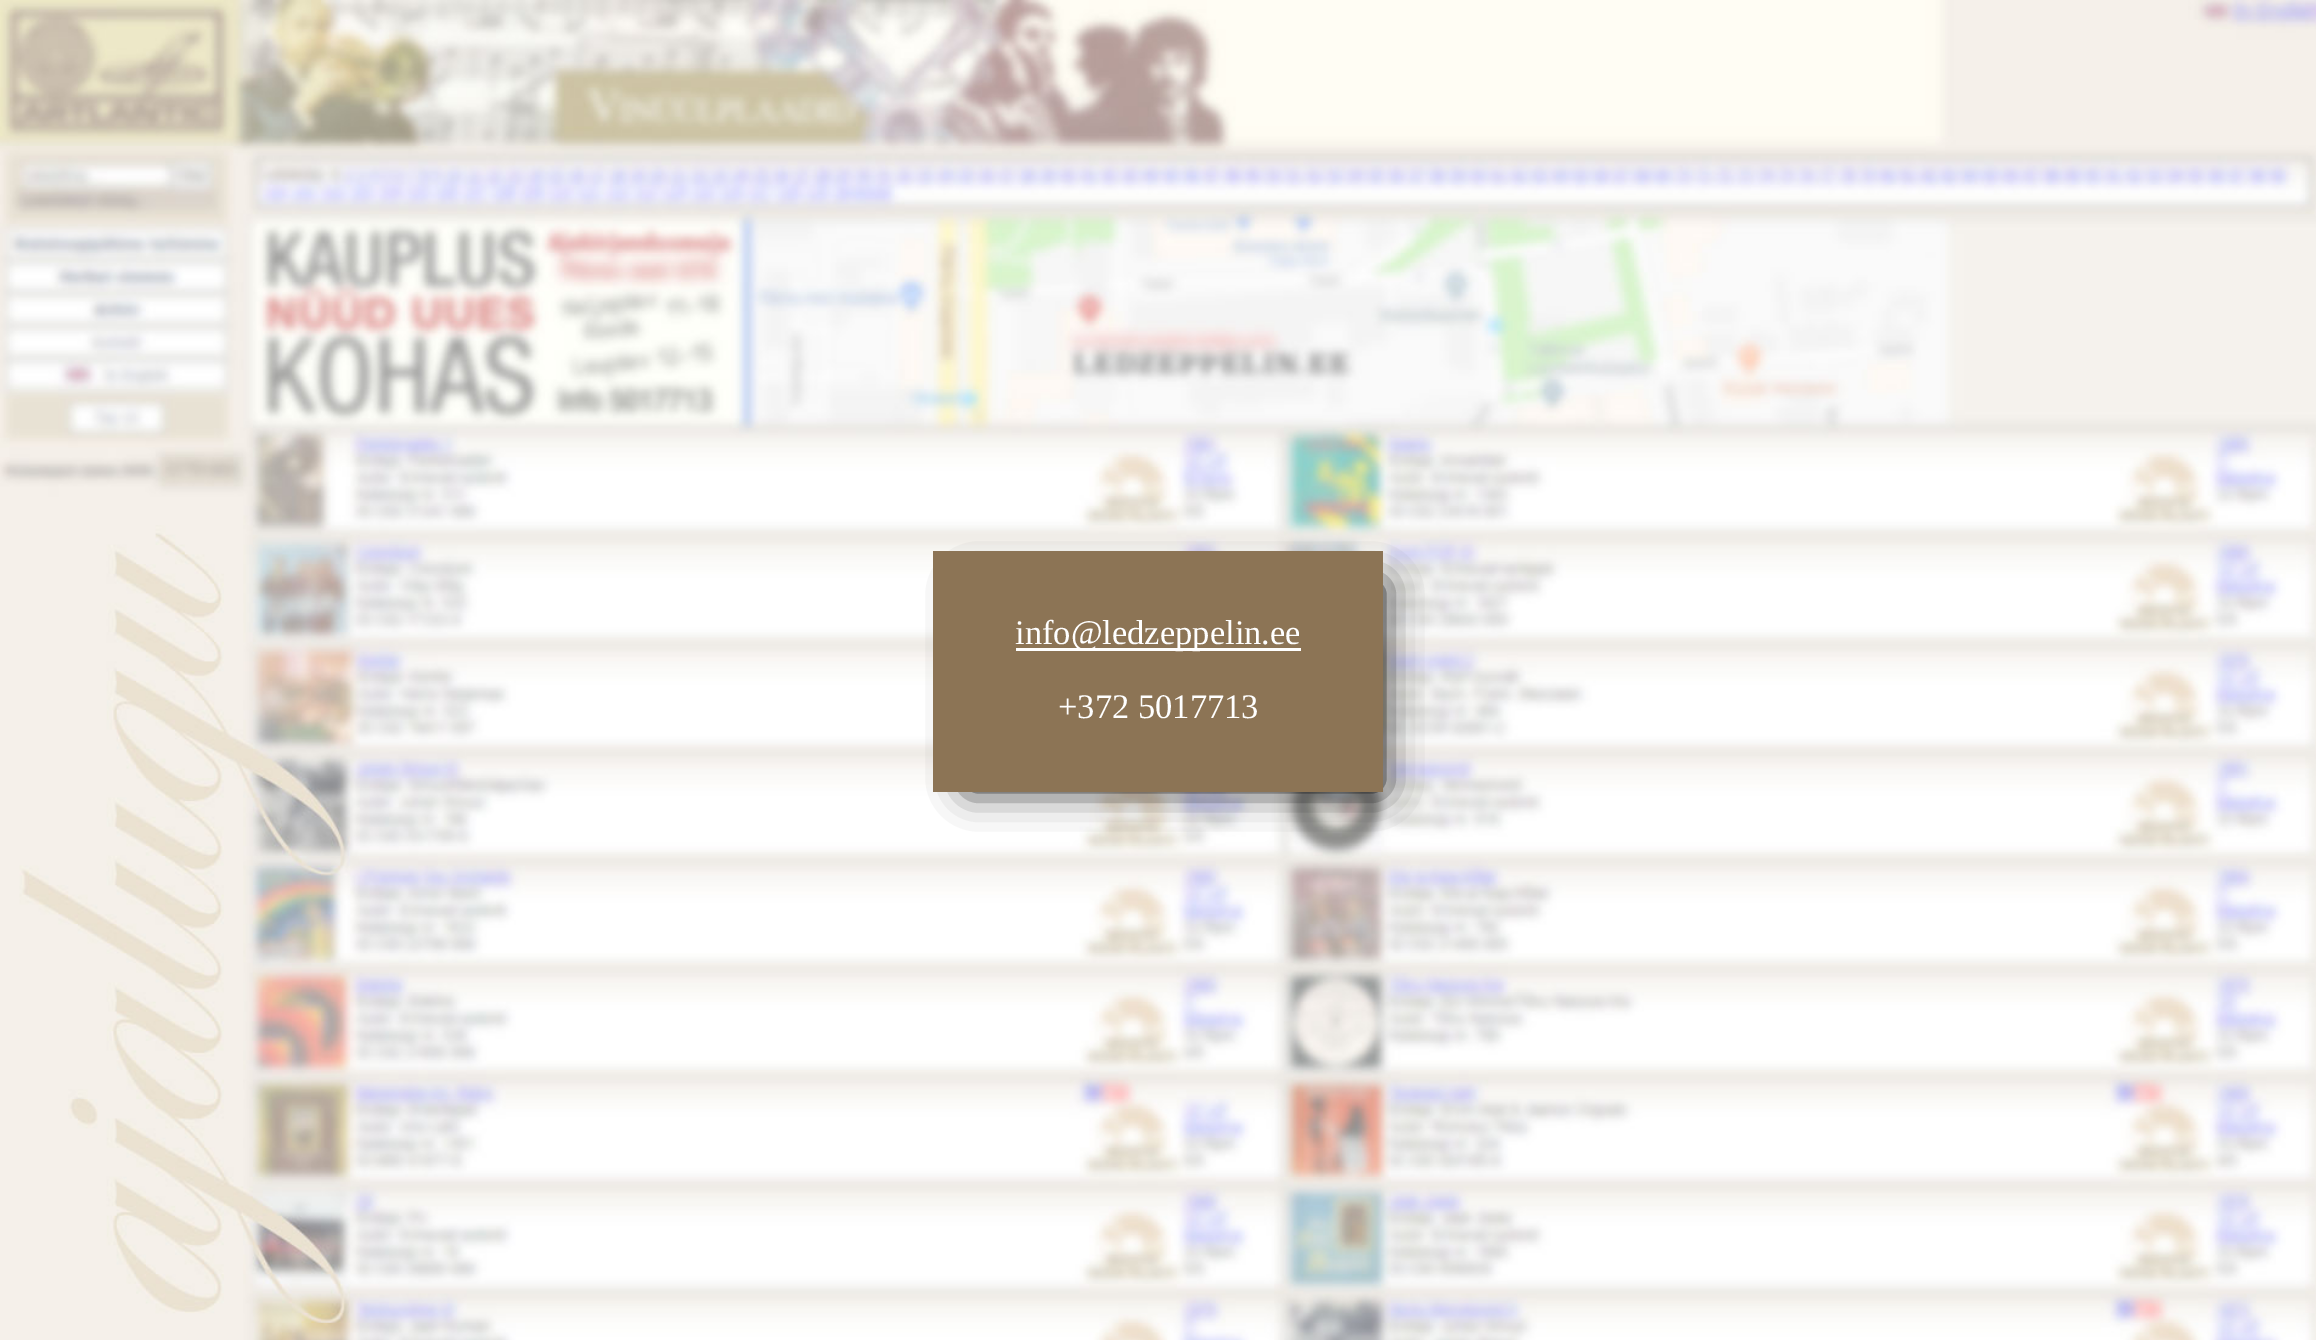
%!PS
<< /PageSize [2316 1340] /PageUsesTransparency true >> setpagedevice
/alpha { dup .setfillconstantalpha .setstrokeconstantalpha } def
/roundrect { 5 dict begin { /r /h /w /y /x } { exch def } forall
  x r add y moveto x w add y 2 copy h add r arct x w add y h add x 1 index r arct
  x y h add x y r arct x y 2 copy exch w add exch r arct closepath end } def
/shadow { 12 dict begin { /a /b /q /h /w /y /x } { exch def } forall gsave /was 0 def
  9 -2 -9 { dup b mul 4 div /e exch def 1 sub .425 mul 2.718 exch exp 1 add a .99 .min exch div /now exch def
    1 1 now sub 1 was sub div sub alpha /was now def
    w h .min e 2 mul add 0 gt { x e sub y e sub w e 2 mul add h e 2 mul add
      q e add b .6 mul add w h .min 2 div e add .min 0 .max roundrect fill } if } for grestore end } def
/picture { 5 dict begin { /h /w /y /x /name } { exch def } forall
  gsave x y translate w h scale
  w h 8 [w 0 0 h 0 0] name (r) file false 3 colorimage grestore end } def
0 .pushpdf14devicefilter
0 1340 translate 1 -1 scale
4 setmiterlimit
1 setgray
0 0 2316 1340 rectfill
(img1.rgb) 0 0 2316 1340 picture
0 setgray
968 584 414 205 0 19 1 shadow
0.549 0.455 0.333 setrgbcolor
933 551 450 241 rectfill
1 setgray
1016 648 285 3 rectfill
/LiberationSerif-Regular [34.5 0 0 -34.5 0 0] selectfont
1015 644 moveto (info@ledzeppelin.ee) show
1058 718 moveto (+372 5017713) show
.poppdf14devicefilter showpage
